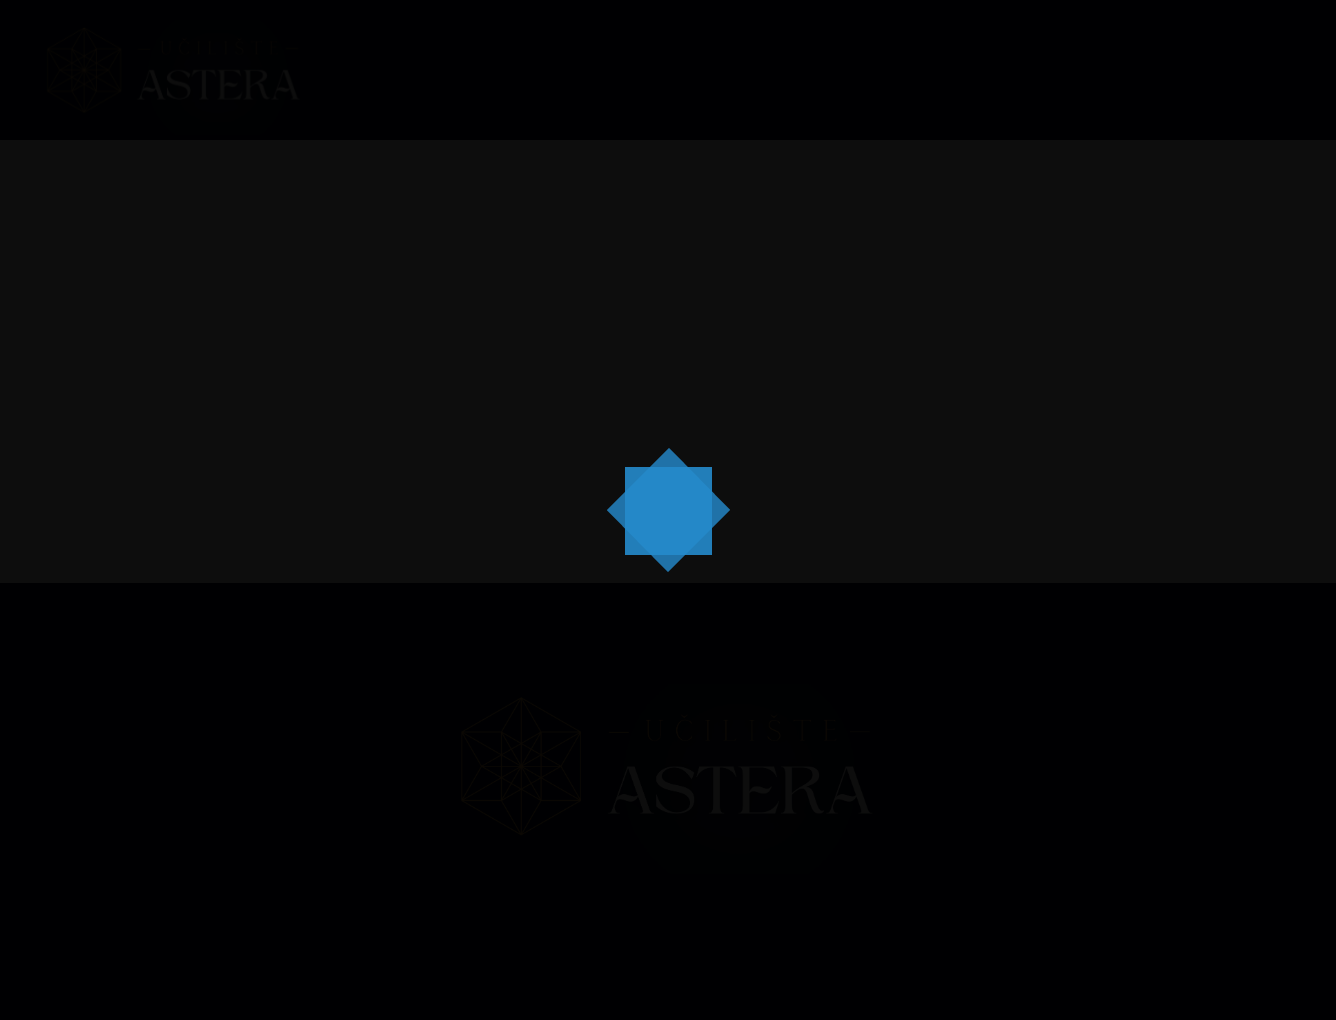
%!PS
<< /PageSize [1336 1020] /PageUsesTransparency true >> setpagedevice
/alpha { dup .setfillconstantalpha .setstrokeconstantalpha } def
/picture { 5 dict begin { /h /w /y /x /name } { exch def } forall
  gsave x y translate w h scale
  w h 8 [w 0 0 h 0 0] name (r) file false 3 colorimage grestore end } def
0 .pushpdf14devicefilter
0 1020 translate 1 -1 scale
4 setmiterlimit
0.051 setgray
0 0 1336 1020 rectfill
0 0 0.008 setrgbcolor
0 0 1336 140 rectfill
(img1.rgb) 46 20 254 115 picture
0.9 alpha
0.141 0.541 0.8 setrgbcolor
625 467 87 88 rectfill
0.81 alpha
newpath 669 448 moveto 730 510 lineto 668 572 lineto 607 510 lineto closepath fill
1 alpha
0 0 0.008 setrgbcolor
0 583 1336 437 rectfill
(img2.rgb) 461 684 412 190 picture
.poppdf14devicefilter showpage
